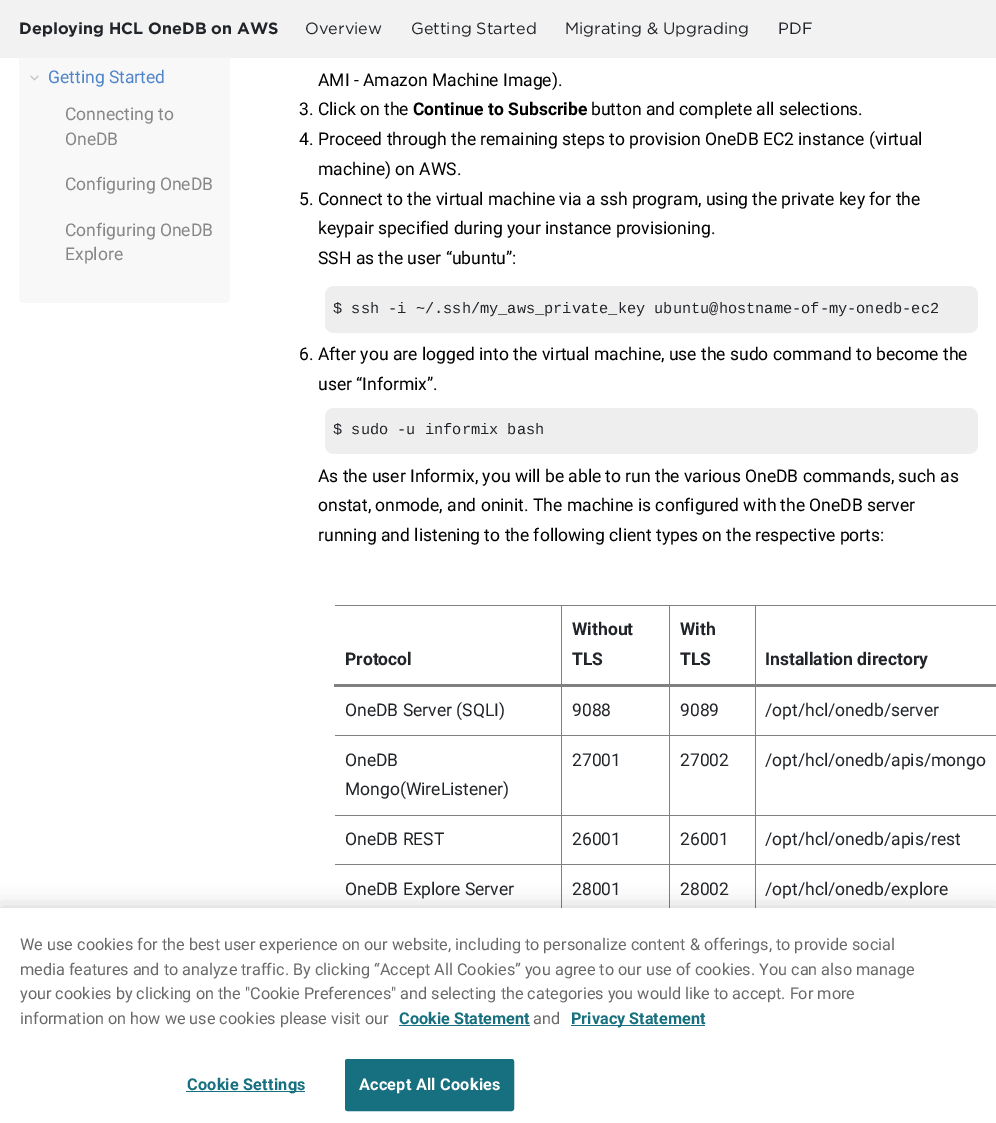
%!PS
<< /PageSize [996 1123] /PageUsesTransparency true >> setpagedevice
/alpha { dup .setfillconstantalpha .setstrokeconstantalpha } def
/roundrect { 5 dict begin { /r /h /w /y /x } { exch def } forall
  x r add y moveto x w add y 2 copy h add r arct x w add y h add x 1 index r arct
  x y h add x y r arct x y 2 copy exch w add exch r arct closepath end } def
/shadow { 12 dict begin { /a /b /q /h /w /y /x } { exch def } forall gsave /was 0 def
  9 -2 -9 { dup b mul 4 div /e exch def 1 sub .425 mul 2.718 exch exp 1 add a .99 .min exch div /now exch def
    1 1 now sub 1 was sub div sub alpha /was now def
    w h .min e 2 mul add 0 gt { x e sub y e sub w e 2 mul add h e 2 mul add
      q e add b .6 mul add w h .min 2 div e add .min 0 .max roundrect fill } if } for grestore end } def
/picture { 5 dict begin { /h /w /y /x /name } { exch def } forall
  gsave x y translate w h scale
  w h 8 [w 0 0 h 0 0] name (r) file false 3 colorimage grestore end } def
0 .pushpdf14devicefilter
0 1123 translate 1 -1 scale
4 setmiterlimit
1 setgray
0 0 996 1123 rectfill
0.973 setgray
19 25 211 278 4 roundrect fill
0.949 setgray
0 0 996 58 rectfill
/Gotham-Bold [16.25 0 0 -16.25 0 0] selectfont
0.129 0.145 0.161 setrgbcolor
19 34 moveto (Deploying HCL OneDB on AWS) show
/Gotham-Regular [16.25 0 0 -16.25 0 0] selectfont
305 34 moveto (Overview) show
411 34 moveto (Getting Started) show
565 34 moveto (Migrating & Upgrading) show
778 34 moveto (PDF) show
(img1.rgb) 30 75 9 6 picture
/Roboto-Regular [17.5 0 0 -17.5 0 0] selectfont
0.318 0.522 0.796 setrgbcolor
48 83 moveto (Getting Started) show
0.529 setgray
65 120 moveto (Connecting to) show
65 145 moveto (OneDB) show
65 190 moveto (Configuring OneDB) show
65 236 moveto (Configuring OneDB) show
65 260 moveto (Explore) show
0 setgray
318 86 moveto (AMI - Amazon Machine Image\).) show
299 115 moveto (3. Click on the) show
/Roboto-Bold [17.5 0 0 -17.5 0 0] selectfont
413 115 moveto (Continue to Subscribe) show
/Roboto-Regular [17.5 0 0 -17.5 0 0] selectfont
591 115 moveto (button and complete all selections.) show
299 145 moveto (4. Proceed through the remaining steps to provision OneDB EC2 instance \(virtual) show
318 175 moveto (machine\) on AWS.) show
299 205 moveto (5. Connect to the virtual machine via a ssh program, using the private key for the) show
318 234 moveto (keypair specified during your instance provisioning.) show
318 264 moveto (SSH as the user “ubuntu”:) show
0.933 setgray
325 286 653 47 9 roundrect fill
/LiberationMono-Regular [15.3 0 0 -15.3 0 0] selectfont
0.129 0.145 0.161 setrgbcolor
333 313 moveto ($ ssh -i ~/.ssh/my_aws_private_key ubuntu@hostname-of-my-onedb-ec2) show
/Roboto-Regular [17.5 0 0 -17.5 0 0] selectfont
0 setgray
299 360 moveto (6. After you are logged into the virtual machine, use the sudo command to become the) show
318 390 moveto (user “Informix”.) show
0.933 setgray
325 408 653 46 9 roundrect fill
/LiberationMono-Regular [15.3 0 0 -15.3 0 0] selectfont
0.129 0.145 0.161 setrgbcolor
333 434 moveto ($ sudo -u informix bash) show
/Roboto-Regular [17.5 0 0 -17.5 0 0] selectfont
0 setgray
318 482 moveto (As the user Informix, you will be able to run the various OneDB commands, such as) show
318 511 moveto (onstat, onmode, and oninit. The machine is configured with the OneDB server) show
318 541 moveto (running and listening to the following client types on the respective ports:) show
0.502 setgray
335 605 661 1 rectfill
335 735 661 1 rectfill
335 815 661 1 rectfill
335 864 661 1 rectfill
561 864 1 51 rectfill
561 815 1 50 rectfill
561 685 1 131 rectfill
561 605 1 81 rectfill
/Roboto-Bold [17.5 0 0 -17.5 0 0] selectfont
0.129 0.145 0.161 setrgbcolor
345 665 moveto (Protocol) show
0.502 setgray
669 864 1 51 rectfill
669 815 1 50 rectfill
669 685 1 131 rectfill
669 605 1 81 rectfill
0.129 0.145 0.161 setrgbcolor
572 635 moveto (Without) show
572 665 moveto (TLS) show
0.502 setgray
755 864 1 51 rectfill
755 815 1 50 rectfill
755 685 1 131 rectfill
755 605 1 81 rectfill
0.129 0.145 0.161 setrgbcolor
680 635 moveto (With) show
680 665 moveto (TLS) show
0.502 setgray
334 684 662 3 rectfill
0.129 0.145 0.161 setrgbcolor
765 665 moveto (Installation directory) show
/Roboto-Regular [17.5 0 0 -17.5 0 0] selectfont
345 716 moveto (OneDB Server \(SQLI\)) show
572 716 moveto (9088) show
680 716 moveto (9089) show
765 716 moveto (/opt/hcl/onedb/server) show
345 766 moveto (OneDB) show
345 795 moveto (Mongo\(WireListener\)) show
572 766 moveto (27001) show
680 766 moveto (27002) show
765 766 moveto (/opt/hcl/onedb/apis/mongo) show
345 845 moveto (OneDB REST) show
572 845 moveto (26001) show
680 845 moveto (26001) show
765 845 moveto (/opt/hcl/onedb/apis/rest) show
345 895 moveto (OneDB Explore Server) show
572 895 moveto (28001) show
680 895 moveto (28002) show
765 895 moveto (/opt/hcl/onedb/explore) show
0 setgray
0 908 996 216 0 11 0.2 shadow
1 setgray
0 908 996 215 rectfill
/Roboto-Regular [16.25 0 0 -16.25 0 0] selectfont
0.412 setgray
20 950 moveto (We use cookies for the best user experience on our website, including to personalize content & offerings, to provide social) show
20 975 moveto (media features and to analyze traffic. By clicking “Accept All Cookies” you agree to our use of cookies. You can also manage) show
20 999 moveto (your cookies by clicking on the "Cookie Preferences" and selecting the categories you would like to accept. For more) show
20 1024 moveto (information on how we use cookies please visit our) show
/Roboto-Bold [16.25 0 0 -16.25 0 0] selectfont
0.09 0.439 0.498 setrgbcolor
399 1024 moveto (Cookie Statement) show
399 1025 131 1 rectfill
/Roboto-Regular [16.25 0 0 -16.25 0 0] selectfont
0.412 setgray
533 1024 moveto (and) show
0.09 0.439 0.498 setrgbcolor
571 1025 134 1 rectfill
/Roboto-Bold [16.25 0 0 -16.25 0 0] selectfont
571 1024 moveto (Privacy Statement) show
186 1091 119 1 rectfill
187 1090 moveto 0.2 0 (Cookie Settings) ashow
345.5 1059.5 168 51 2 roundrect gsave fill grestore
stroke
1 setgray
359 1090 moveto 0.2 0 (Accept All Cookies) ashow
.poppdf14devicefilter showpage
